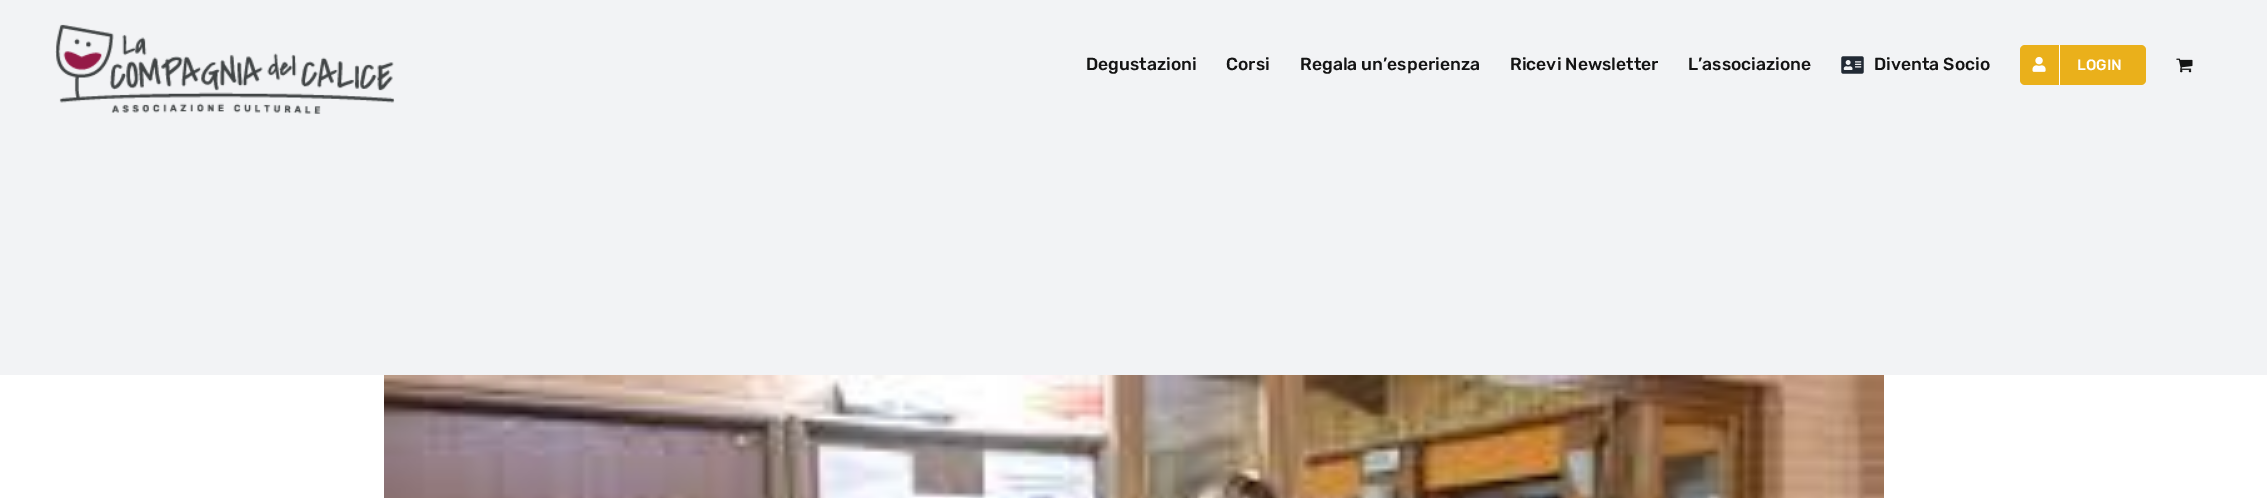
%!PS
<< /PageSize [2267 498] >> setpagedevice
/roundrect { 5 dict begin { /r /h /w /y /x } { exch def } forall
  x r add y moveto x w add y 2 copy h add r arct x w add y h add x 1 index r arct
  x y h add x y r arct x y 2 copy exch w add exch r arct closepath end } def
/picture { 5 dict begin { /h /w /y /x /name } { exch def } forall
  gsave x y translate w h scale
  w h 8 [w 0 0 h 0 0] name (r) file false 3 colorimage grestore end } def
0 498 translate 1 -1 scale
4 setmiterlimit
1 setgray
0 0 2267 498 rectfill
0.949 0.953 0.961 setrgbcolor
0 0 2267 375 rectfill
(img1.rgb) 55 24 340 90 picture
/Rubik-Medium [17.5 0 0 -17.5 0 0] selectfont
0.078 setgray
1086 70 moveto (Degustazioni) show
1226 70 moveto (Corsi) show
1300 70 moveto (Regala un’esperienza) show
1510 70 moveto (Ricevi Newsletter) show
1688 70 moveto (L’associazione) show
(img2.rgb) 1841 56 23 18 picture
1874 70 moveto (Diventa Socio) show
0.918 0.69 0.106 setrgbcolor
2020 45 126 40 5 roundrect fill
1 setgray
2059 45 1 40 rectfill
(img3.rgb) 2032 56 14 16 picture
/Rubik-Medium [15 0 0 -15 0 0] selectfont
2077 70 moveto (LOGIN) show
(img4.rgb) 2176 58 17 15 picture
(img5.rgb) 384 375 1500 123 picture
showpage
